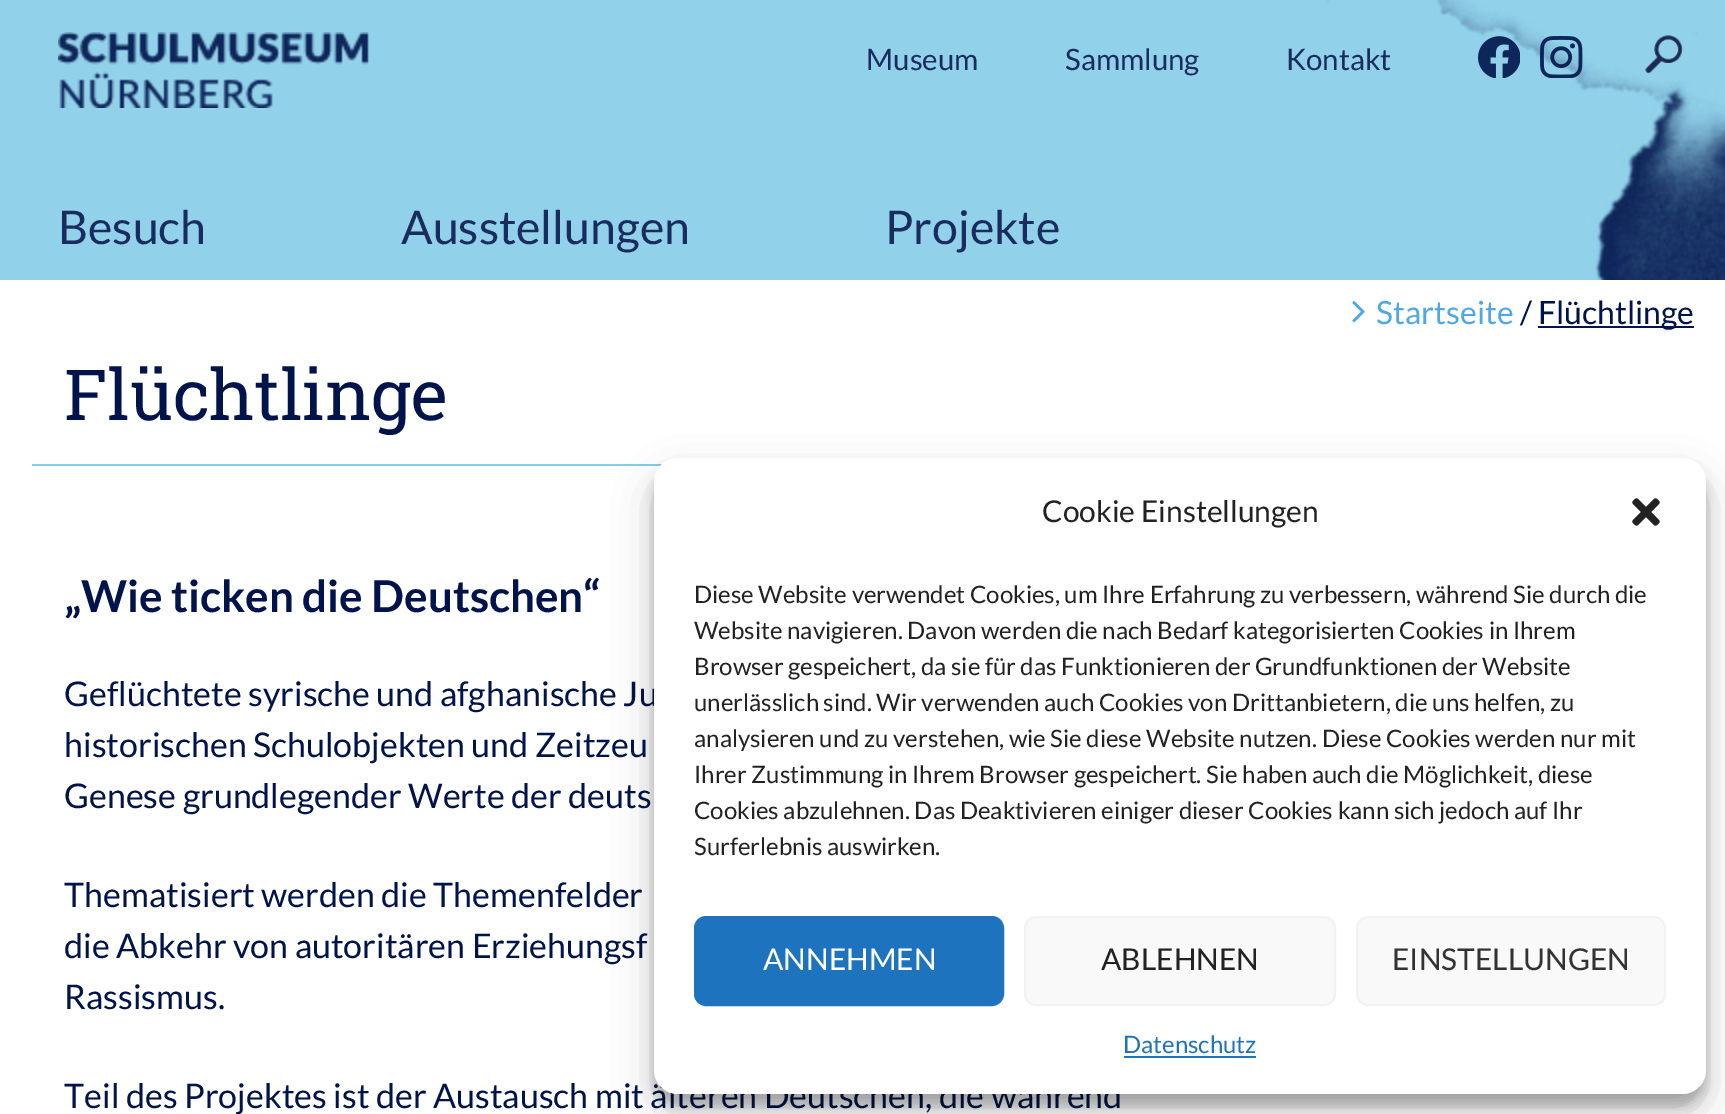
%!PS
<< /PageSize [1725 1114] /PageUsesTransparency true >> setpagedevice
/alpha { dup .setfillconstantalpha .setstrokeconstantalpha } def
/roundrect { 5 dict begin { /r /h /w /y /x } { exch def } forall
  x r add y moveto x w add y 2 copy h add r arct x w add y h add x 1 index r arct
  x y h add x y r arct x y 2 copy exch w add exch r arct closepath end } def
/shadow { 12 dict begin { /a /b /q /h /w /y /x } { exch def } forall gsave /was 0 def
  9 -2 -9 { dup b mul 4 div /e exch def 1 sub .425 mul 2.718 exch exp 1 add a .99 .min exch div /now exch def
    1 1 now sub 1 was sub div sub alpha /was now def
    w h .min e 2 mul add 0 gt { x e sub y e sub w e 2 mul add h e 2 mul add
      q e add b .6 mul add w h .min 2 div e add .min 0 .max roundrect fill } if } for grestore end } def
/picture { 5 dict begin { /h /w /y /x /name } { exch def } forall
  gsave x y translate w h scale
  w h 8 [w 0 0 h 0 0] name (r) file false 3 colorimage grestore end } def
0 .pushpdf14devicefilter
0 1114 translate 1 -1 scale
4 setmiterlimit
1 setgray
0 0 1725 1114 rectfill
0.569 0.824 0.918 setrgbcolor
0 0 1725 280 rectfill
(img1.rgb) 58 32 311 76 picture
/Lato-Regular [29.5 0 0 -29.5 0 0] selectfont
0.102 0.173 0.365 setrgbcolor
866 70 moveto (Museum) show
1065 70 moveto (Sammlung) show
(img5.rgb) 1326 0 399 280 picture
1286 70 moveto (Kontakt) show
(img2.rgb) 1478 36 42 42 picture
(img3.rgb) 1540 36 43 42 picture
(img4.rgb) 1645 35 38 39 picture
/Lato-Regular [46.5 0 0 -46.5 0 0] selectfont
58 244 moveto (Besuch) show
401 244 moveto (Ausstellungen) show
885 244 moveto (Projekte) show
(img6.rgb) 1352 301 13 22 picture
/Lato-Regular [32 0 0 -32 0 0] selectfont
0.31 0.659 0.902 setrgbcolor
1376 324 moveto (Startseite) show
0 0.078 0.294 setrgbcolor
1520 324 moveto (/) show
1538 326 156 2 rectfill
1538 324 moveto (Flüchtlinge) show
/RobotoSlab-Regular [70.5 0 0 -70.5 0 0] selectfont
64 420 moveto (Flüchtlinge) show
0.522 0.804 0.91 setrgbcolor
32 464 631 2 rectfill
/Lato-Bold [44 0 0 -44 0 0] selectfont
0 0.078 0.294 setrgbcolor
64 612 moveto („Wie ticken die Deutschen“) show
/Lato-Regular [34 0 0 -34 0 0] selectfont
64 706 moveto (Geflüchtete syrische und afghanische Ju) show
64 757 moveto (historischen Schulobjekten und Zeitzeu) show
64 808 moveto (Genese grundlegender Werte der deuts) show
64 907 moveto (Thematisiert werden die Themenfelder) show
64 958 moveto (die Abkehr von autoritären Erziehungsf) show
64 1009 moveto (Rassismus.) show
64 1108 moveto (Teil des Projektes ist der Austausch mit älteren Deutschen, die während) show
0 setgray
654 470 1052 636 24 6 0.23 shadow
654 478 1052 636 24 20 0.19 shadow
1 setgray
654 458 1052 636 24 roundrect fill
/Lato-Regular [30 0 0 -30 0 0] selectfont
0.133 setgray
1042 522 moveto (Cookie Einstellungen) show
(img7.rgb) 1632 498 28 28 picture
/Lato-Regular [24 0 0 -24 0 0] selectfont
694 603 moveto (Diese Website verwendet Cookies, um Ihre Erfahrung zu verbessern, während Sie durch die) show
694 639 moveto (Website navigieren. Davon werden die nach Bedarf kategorisierten Cookies in Ihrem) show
694 675 moveto (Browser gespeichert, da sie für das Funktionieren der Grundfunktionen der Website) show
694 711 moveto (unerlässlich sind. Wir verwenden auch Cookies von Drittanbietern, die uns helfen, zu) show
694 747 moveto (analysieren und zu verstehen, wie Sie diese Website nutzen. Diese Cookies werden nur mit) show
694 783 moveto (Ihrer Zustimmung in Ihrem Browser gespeichert. Sie haben auch die Möglichkeit, diese) show
694 819 moveto (Cookies abzulehnen. Das Deaktivieren einiger dieser Cookies kann sich jedoch auf Ihr) show
694 855 moveto (Surferlebnis auswirken.) show
0.118 0.451 0.745 setrgbcolor
695 917 308 88 11 roundrect gsave fill grestore
2 setlinewidth
stroke
/Lato-Regular [30 0 0 -30 0 0] selectfont
1 setgray
763 970 moveto (ANNEHMEN) show
0.976 setgray
1025 917 310 88 11 roundrect gsave fill grestore
0.949 setgray
stroke
0.133 setgray
1101 970 moveto (ABLEHNEN) show
0.976 setgray
1357 917 308 88 11 roundrect gsave fill grestore
0.949 setgray
stroke
0.2 setgray
1392 970 moveto (EINSTELLUNGEN) show
/Lato-Regular [24 0 0 -24 0 0] selectfont
0.118 0.451 0.745 setrgbcolor
1123 1053 moveto (Datenschutz) show
1124 1056 132 2 rectfill
.poppdf14devicefilter showpage
